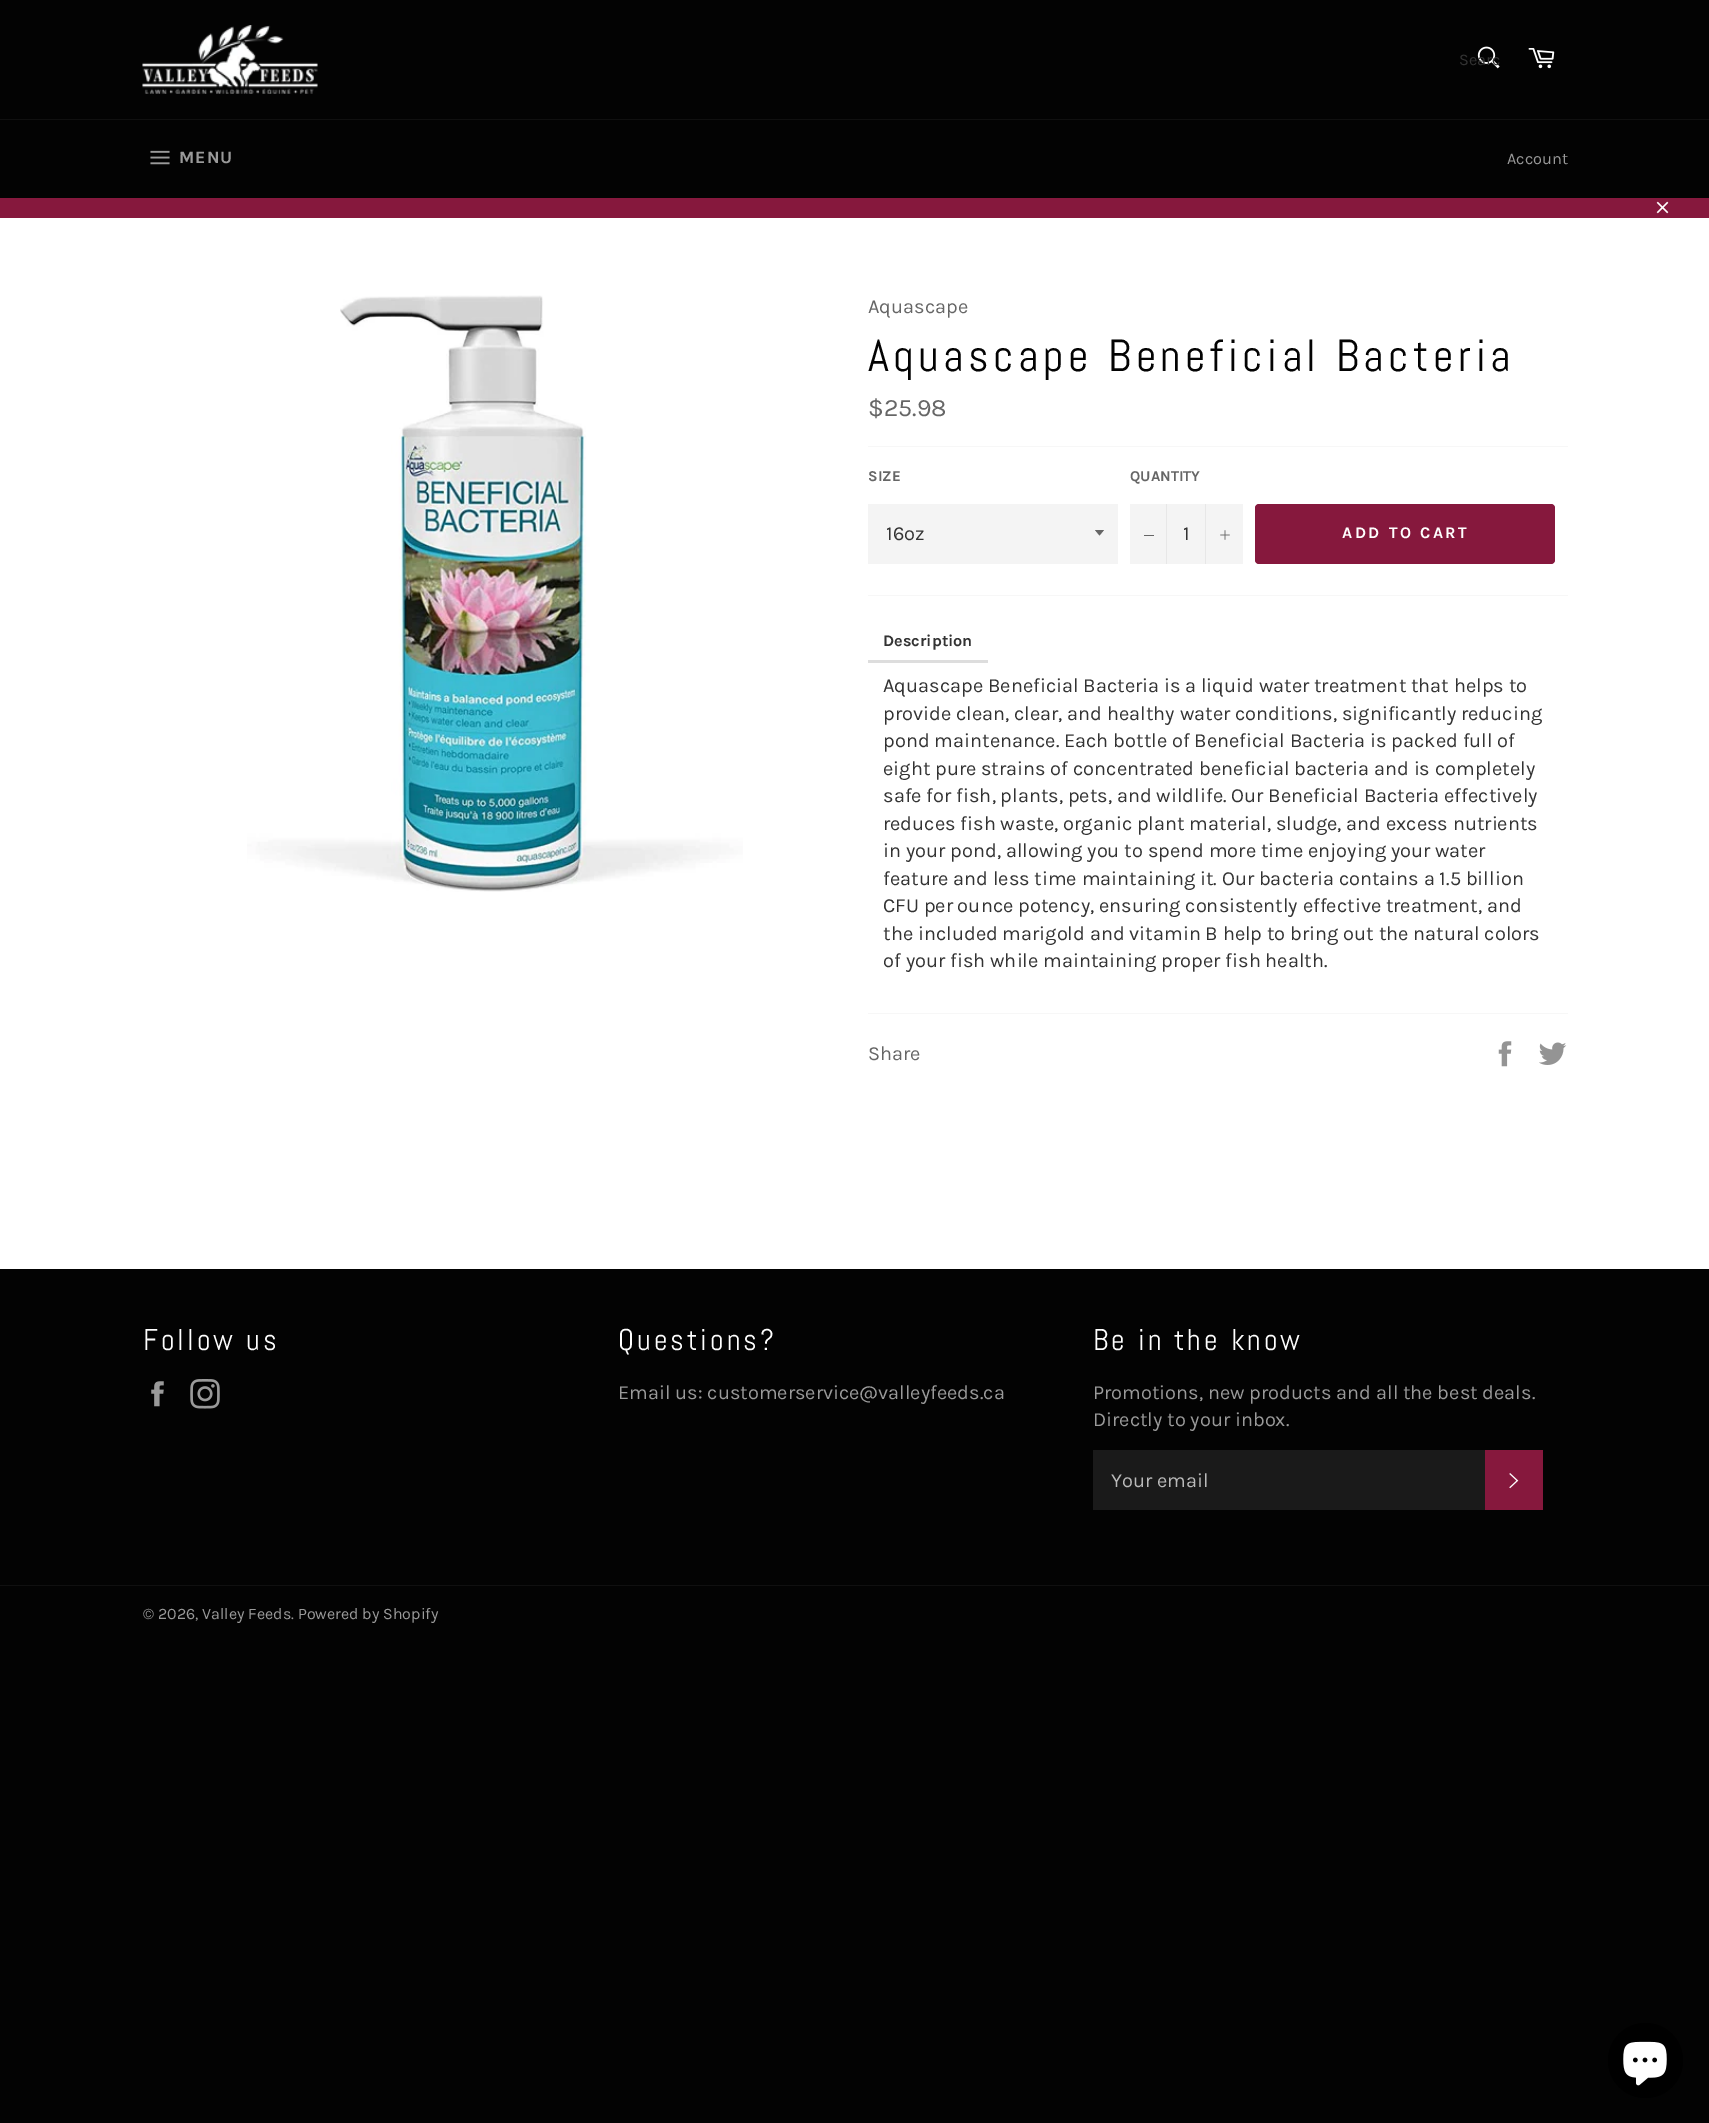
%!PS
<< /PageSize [1709 2123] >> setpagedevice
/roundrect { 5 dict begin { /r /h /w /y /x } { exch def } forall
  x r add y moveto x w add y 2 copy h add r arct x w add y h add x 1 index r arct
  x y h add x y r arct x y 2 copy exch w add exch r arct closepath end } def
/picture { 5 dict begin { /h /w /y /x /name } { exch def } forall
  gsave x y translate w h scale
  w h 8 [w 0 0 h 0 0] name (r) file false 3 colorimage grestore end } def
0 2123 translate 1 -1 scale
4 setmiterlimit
0.012 setgray
0 0 1709 2123 rectfill
(img1.rgb) 142 25 176 69 picture
(img2.rgb) 1477 46 23 23 picture
/Karla-Regular [16.25 0 0 -16.25 0 0] selectfont
0.2 setgray
1459 65 moveto (Searc) show
(img3.rgb) 1528 48 27 21 picture
0.063 setgray
0 119 1709 1 rectfill
(img4.rgb) 150 150 20 15 picture
/Karla-Bold [17.5 0 0 -17.5 0 0] selectfont
0.604 setgray
179 163 moveto 1 0 (MENU) ashow
/Karla-Regular [16.25 0 0 -16.25 0 0] selectfont
1507 164 moveto (Account) show
0.525 0.094 0.239 setrgbcolor
0 198 1709 20 rectfill
(img5.rgb) 1656 201 13 13 picture
1 setgray
0 218 1709 1051 rectfill
(img6.rgb) 247 295 496 597 picture
/Karla-Regular [20 0 0 -20 0 0] selectfont
0.4 setgray
868 313 moveto (Aquascape) show
/Abel-Regular [45 0 0 -45 0 0] selectfont
0.012 setgray
868 371 moveto 4.5 0 (Aquascape Beneficial Bacteria) ashow
/Karla-Regular [25 0 0 -25 0 0] selectfont
0.4 setgray
868 416 moveto ($25.98) show
0.969 setgray
868 446 700 1 rectfill
/Karla-Bold [15 0 0 -15 0 0] selectfont
0.4 setgray
868 481 moveto (SIZE) show
0.957 setgray
868 504 250 60 rectfill
0.4 setgray
newpath 1095 530 moveto 1099.5 535.5 lineto 1104 530 lineto closepath fill
/Karla-Regular [20 0 0 -20 0 0] selectfont
0.2 setgray
886 540 moveto (16oz) show
/Karla-Bold [15 0 0 -15 0 0] selectfont
0.4 setgray
1130 481 moveto (QUANTITY) show
0.957 setgray
1130 504 113 60 rectfill
0.906 setgray
1166 504 1 60 rectfill
0.4 setgray
1144 535 10 1 rectfill
/Karla-Regular [20 0 0 -20 0 0] selectfont
0.2 setgray
1183 540 moveto (1) show
0.906 setgray
1205 504 1 60 rectfill
(img7.rgb) 1220 530 10 10 picture
0.525 0.094 0.239 setrgbcolor
1255 504 300 60 4 roundrect fill
/Karla-Bold [16.25 0 0 -16.25 0 0] selectfont
1 setgray
1342 538 moveto 2.5 0 (ADD TO CART) ashow
0.969 setgray
868 595 700 1 rectfill
0.867 setgray
868 660 120 3 rectfill
0.2 setgray
883 646 moveto (Description) show
/Karla-Regular [20 0 0 -20 0 0] selectfont
883 692 moveto (Aquascape Beneficial Bacteria is a liquid water treatment that helps to) show
883 720 moveto (provide clean, clear, and healthy water conditions, significantly reducing) show
883 747 moveto (pond maintenance. Each bottle of Beneficial Bacteria is packed full of) show
883 775 moveto (eight pure strains of concentrated beneficial bacteria and is completely) show
883 802 moveto (safe for fish, plants, pets, and wildlife. Our Beneficial Bacteria effectively) show
883 830 moveto (reduces fish waste, organic plant material, sludge, and excess nutrients) show
883 857 moveto (in your pond, allowing you to spend more time enjoying your water) show
883 885 moveto (feature and less time maintaining it. Our bacteria contains a 1.5 billion) show
883 912 moveto (CFU per ounce potency, ensuring consistently effective treatment, and) show
883 940 moveto (the included marigold and vitamin B help to bring out the natural colors) show
883 967 moveto (of your fish while maintaining proper fish health.) show
0.969 setgray
868 1013 700 1 rectfill
0.4 setgray
868 1060 moveto (Share) show
(img8.rgb) 1498 1041 14 26 picture
(img9.rgb) 1539 1042 28 23 picture
/Abel-Regular [30 0 0 -30 0 0] selectfont
1 setgray
143 1350 moveto 3 0 (Follow us) ashow
(img10.rgb) 151 1381 13 26 picture
(img11.rgb) 190 1379 30 30 picture
618 1350 moveto 3 0 (Questions?) ashow
/Karla-Regular [20 0 0 -20 0 0] selectfont
0.604 setgray
618 1399 moveto (Email us: customerservice@valleyfeeds.ca) show
/Abel-Regular [30 0 0 -30 0 0] selectfont
1 setgray
1093 1350 moveto 3 0 (Be in the know) ashow
/Karla-Regular [20 0 0 -20 0 0] selectfont
0.604 setgray
1093 1399 moveto (Promotions, new products and all the best deals.) show
1093 1426 moveto (Directly to your inbox.) show
0.102 setgray
1093 1450 392 60 rectfill
0.729 setgray
1111 1487 moveto (Your email) show
0.525 0.094 0.239 setrgbcolor
1485 1450 58 60 rectfill
(img12.rgb) 1509 1473 10 16 picture
0.063 setgray
0 1585 1709 1 rectfill
/Karla-Regular [16 0 0 -16 0 0] selectfont
0.604 setgray
143 1619 moveto (© 2026, Valley Feeds. Powered by Shopify) show
0 setgray
newpath 1645.5 2060.5 37.5 0 360 arc closepath fill
(img13.rgb) 1623 2041 44 45 picture
showpage
